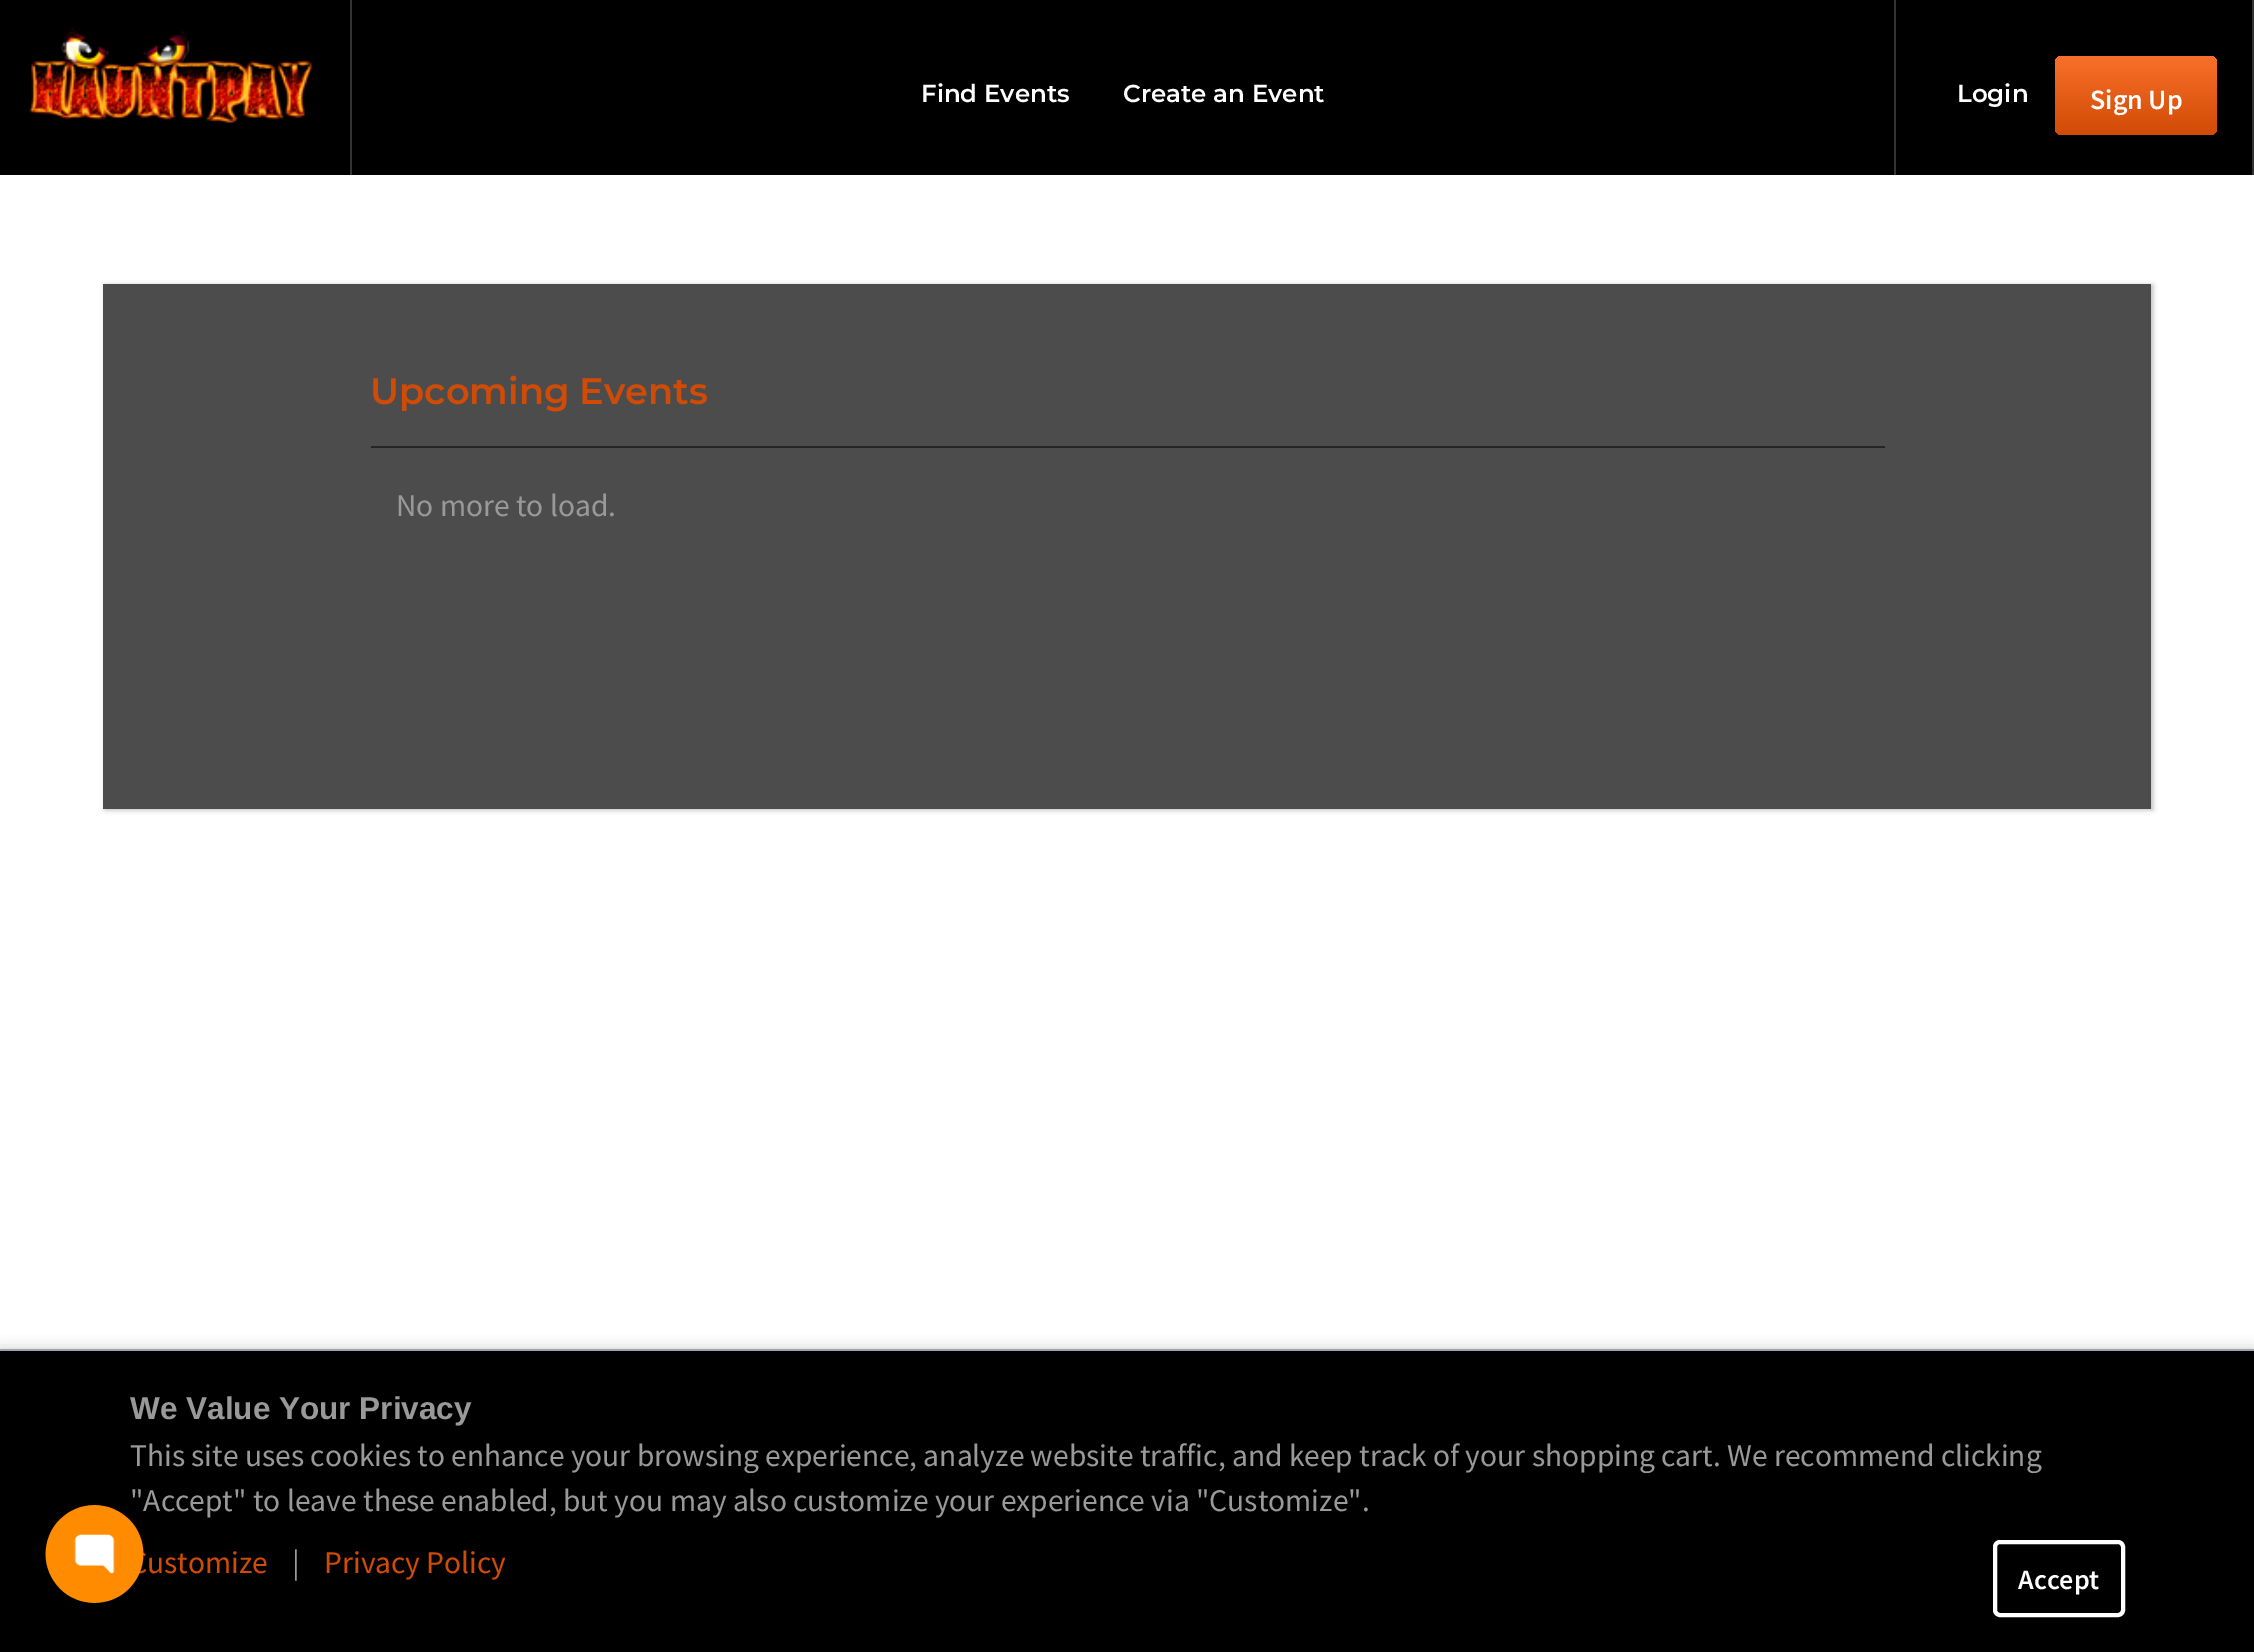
%!PS
<< /PageSize [2254 1652] /PageUsesTransparency true >> setpagedevice
/alpha { dup .setfillconstantalpha .setstrokeconstantalpha } def
/roundrect { 5 dict begin { /r /h /w /y /x } { exch def } forall
  x r add y moveto x w add y 2 copy h add r arct x w add y h add x 1 index r arct
  x y h add x y r arct x y 2 copy exch w add exch r arct closepath end } def
/shadow { 12 dict begin { /a /b /q /h /w /y /x } { exch def } forall gsave /was 0 def
  9 -2 -9 { dup b mul 4 div /e exch def 1 sub .425 mul 2.718 exch exp 1 add a .99 .min exch div /now exch def
    1 1 now sub 1 was sub div sub alpha /was now def
    w h .min e 2 mul add 0 gt { x e sub y e sub w e 2 mul add h e 2 mul add
      q e add b .6 mul add w h .min 2 div e add .min 0 .max roundrect fill } if } for grestore end } def
/picture { 5 dict begin { /h /w /y /x /name } { exch def } forall
  gsave x y translate w h scale
  w h 8 [w 0 0 h 0 0] name (r) file false 3 colorimage grestore end } def
0 .pushpdf14devicefilter
0 1652 translate 1 -1 scale
4 setmiterlimit
1 setgray
0 0 2254 1652 rectfill
0 setgray
0 0 2252 175 rectfill
0.2 setgray
350 0 2 175 rectfill
(img1.rgb) 29 28 285 97 picture
/Montserrat-SemiBold [24.5 0 0 -24.5 0 0] selectfont
1 setgray
921 102 moveto (Find Events) show
1123 102 moveto (Create an Event) show
0.2 setgray
2252 0 2 175 rectfill
1894 0 2 175 rectfill
1 setgray
1957 102 moveto (Login) show
gsave 2055 56 162 79 7 roundrect clip newpath
<< /ShadingType 2 /ColorSpace /DeviceRGB /Coords [2136 56 2136 135] /Extend [true true] /Function << /FunctionType 2 /Domain [0 1] /C0 [0.976 0.439 0.165] /C1 [0.816 0.294 0.024] /N 1 >> >> shfill grestore
/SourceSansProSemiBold-SemiBold [28 0 0 -28 0 0] selectfont
2090 109 moveto (Sign Up) show
gsave
newpath 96 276 moveto 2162 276 lineto 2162 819 lineto 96 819 lineto closepath 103 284 moveto 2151 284 lineto 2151 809 lineto 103 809 lineto closepath eoclip newpath
0 setgray
105 285 2048 525 0 2.5 0.25 shadow
grestore
0.7 alpha
0 setgray
103 284 2048 525 rectfill
/Montserrat-SemiBold [36.75 0 0 -36.75 0 0] selectfont
1 alpha
0.816 0.294 0.024 setrgbcolor
370 404 moveto (Upcoming Events) show
0.141 0.145 0.149 setrgbcolor
371 446 1514 2 rectfill
/SourceSansPro-Regular [31.5 0 0 -31.5 0 0] selectfont
0.6 setgray
396 516 moveto (No more to load.) show
0 setgray
0 1349 2254 303 0 7 0.2 shadow
0 1351 2254 301 rectfill
0.6 setgray
130 1511 moveto ("Accept" to leave these enabled, but you may also customize your experience via "Customize".) show
(img2.rgb) 45 1505 101 98 picture
0.612 0.639 0.686 setrgbcolor
0 1349 2254 2 rectfill
/LiberationSans-Bold [31.5 0 0 -31.5 0 0] selectfont
0.6 setgray
130 1419 moveto (We Value Your Privacy) show
/SourceSansPro-Regular [31.5 0 0 -31.5 0 0] selectfont
130 1466 moveto (This site uses cookies to enhance your browsing experience, analyze website traffic, and keep track of your shopping cart. We recommend clicking) show
0.816 0.294 0.024 setrgbcolor
147 1573 moveto (ustomize) show
0.6 setgray
292 1573 moveto (|) show
0.816 0.294 0.024 setrgbcolor
324 1573 moveto (Privacy Policy) show
1 setgray
4 setlinewidth
1995 1542 128 73 5 roundrect stroke
/SourceSansProSemiBold-SemiBold [28 0 0 -28 0 0] selectfont
2018 1589 moveto (Accept) show
.poppdf14devicefilter showpage
